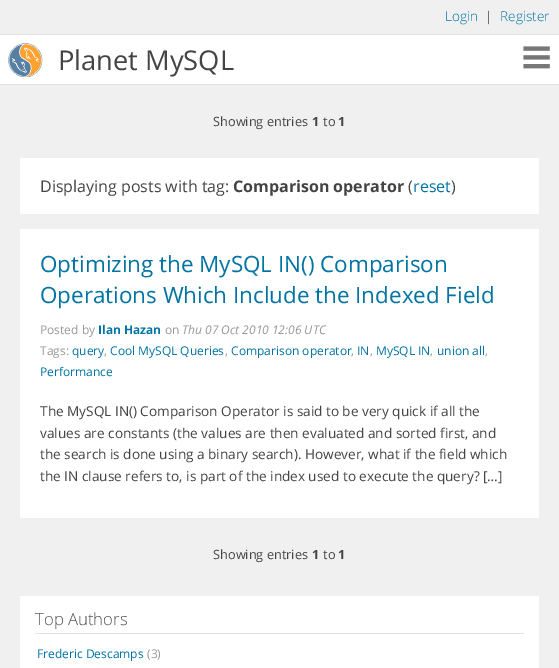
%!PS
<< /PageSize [559 668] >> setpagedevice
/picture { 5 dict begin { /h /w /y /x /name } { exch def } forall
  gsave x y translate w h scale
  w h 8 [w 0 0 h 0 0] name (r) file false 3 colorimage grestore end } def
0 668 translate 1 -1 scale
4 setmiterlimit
0.941 setgray
0 0 559 668 rectfill
0.886 setgray
0 34 559 1 rectfill
/OpenSans-Light [13.6 0 0 -13.6 0 0] selectfont
0 0.455 0.639 setrgbcolor
445 21 moveto (Login) show
0.267 setgray
485 21 moveto (|) show
0 0.455 0.639 setrgbcolor
500 21 moveto (Register) show
1 setgray
0 35 559 49 rectfill
0.886 setgray
0 84 559 1 rectfill
(img1.rgb) 8 43 35 34 picture
/OpenSans-Regular [27.25 0 0 -27.25 0 0] selectfont
0.267 setgray
58 70 moveto (Planet MySQL) show
(img2.rgb) 523 46 27 23 picture
/OpenSans-Regular [12.75 0 0 -12.75 0 0] selectfont
213 126 moveto (Showing entries) show
/OpenSans-Bold [12.75 0 0 -12.75 0 0] selectfont
312 126 moveto (1) show
/OpenSans-Regular [12.75 0 0 -12.75 0 0] selectfont
323 126 moveto (to) show
/OpenSans-Bold [12.75 0 0 -12.75 0 0] selectfont
338 126 moveto (1) show
1 setgray
20 158 519 56 rectfill
/OpenSans-Regular [16 0 0 -16 0 0] selectfont
0.267 setgray
40 192 moveto (Displaying posts with tag:) show
/OpenSans-Bold [16 0 0 -16 0 0] selectfont
233 192 moveto (Comparison operator) show
/OpenSans-Regular [16 0 0 -16 0 0] selectfont
408 192 moveto (\() show
0 0.455 0.639 setrgbcolor
413 192 moveto (reset) show
0.267 setgray
451 192 moveto (\)) show
1 setgray
20 229 519 289 rectfill
/OpenSans-Regular [22.4 0 0 -22.4 0 0] selectfont
0 0.455 0.639 setrgbcolor
40 272 moveto (Optimizing the MySQL IN\(\) Comparison) show
40 303 moveto (Operations Which Include the Indexed Field) show
/OpenSans-Regular [12 0 0 -12 0 0] selectfont
0.6 setgray
40 334 moveto (Posted by) show
/OpenSans-Bold [12 0 0 -12 0 0] selectfont
0 0.455 0.639 setrgbcolor
98 334 moveto (Ilan Hazan) show
/OpenSans-Regular [12 0 0 -12 0 0] selectfont
0.6 setgray
165 334 moveto (on) show
/OpenSans-Italic [12 0 0 -12 0 0] selectfont
182 334 moveto (Thu 07 Oct 2010 12:06 UTC) show
/OpenSans-Regular [12 0 0 -12 0 0] selectfont
40 355 moveto (Tags:) show
0 0.455 0.639 setrgbcolor
72 355 moveto (query) show
0.6 setgray
104 355 moveto (,) show
0 0.455 0.639 setrgbcolor
110 355 moveto (Cool MySQL Queries) show
0.6 setgray
225 355 moveto (,) show
0 0.455 0.639 setrgbcolor
231 355 moveto (Comparison operator) show
0.6 setgray
351 355 moveto (,) show
0 0.455 0.639 setrgbcolor
357 355 moveto (IN) show
0.6 setgray
370 355 moveto (,) show
0 0.455 0.639 setrgbcolor
376 355 moveto (MySQL IN) show
0.6 setgray
430 355 moveto (,) show
0 0.455 0.639 setrgbcolor
437 355 moveto (union all) show
0.6 setgray
485 355 moveto (,) show
0 0.455 0.639 setrgbcolor
40 376 moveto (Performance) show
/OpenSans-Regular [13.6 0 0 -13.6 0 0] selectfont
0.267 setgray
40 416 moveto (The MySQL IN\(\) Comparison Operator is said to be very quick if all the) show
40 438 moveto (values are constants \(the values are then evaluated and sorted first, and) show
40 459 moveto (the search is done using a binary search\). However, what if the field which) show
40 481 moveto (the IN clause refers to, is part of the index used to execute the query? […]) show
/OpenSans-Regular [12.75 0 0 -12.75 0 0] selectfont
213 559 moveto (Showing entries) show
/OpenSans-Bold [12.75 0 0 -12.75 0 0] selectfont
312 559 moveto (1) show
/OpenSans-Regular [12.75 0 0 -12.75 0 0] selectfont
323 559 moveto (to) show
/OpenSans-Bold [12.75 0 0 -12.75 0 0] selectfont
338 559 moveto (1) show
1 setgray
20 596 519 72 rectfill
0.886 setgray
35 633 489 1 rectfill
/OpenSans-Light [16.75 0 0 -16.75 0 0] selectfont
0.333 setgray
35 625 moveto (Top Authors) show
/OpenSans-Regular [12 0 0 -12 0 0] selectfont
0 0.455 0.639 setrgbcolor
37 658 moveto (Frederic Descamps) show
0.6 setgray
147 658 moveto (\(3\)) show
showpage
